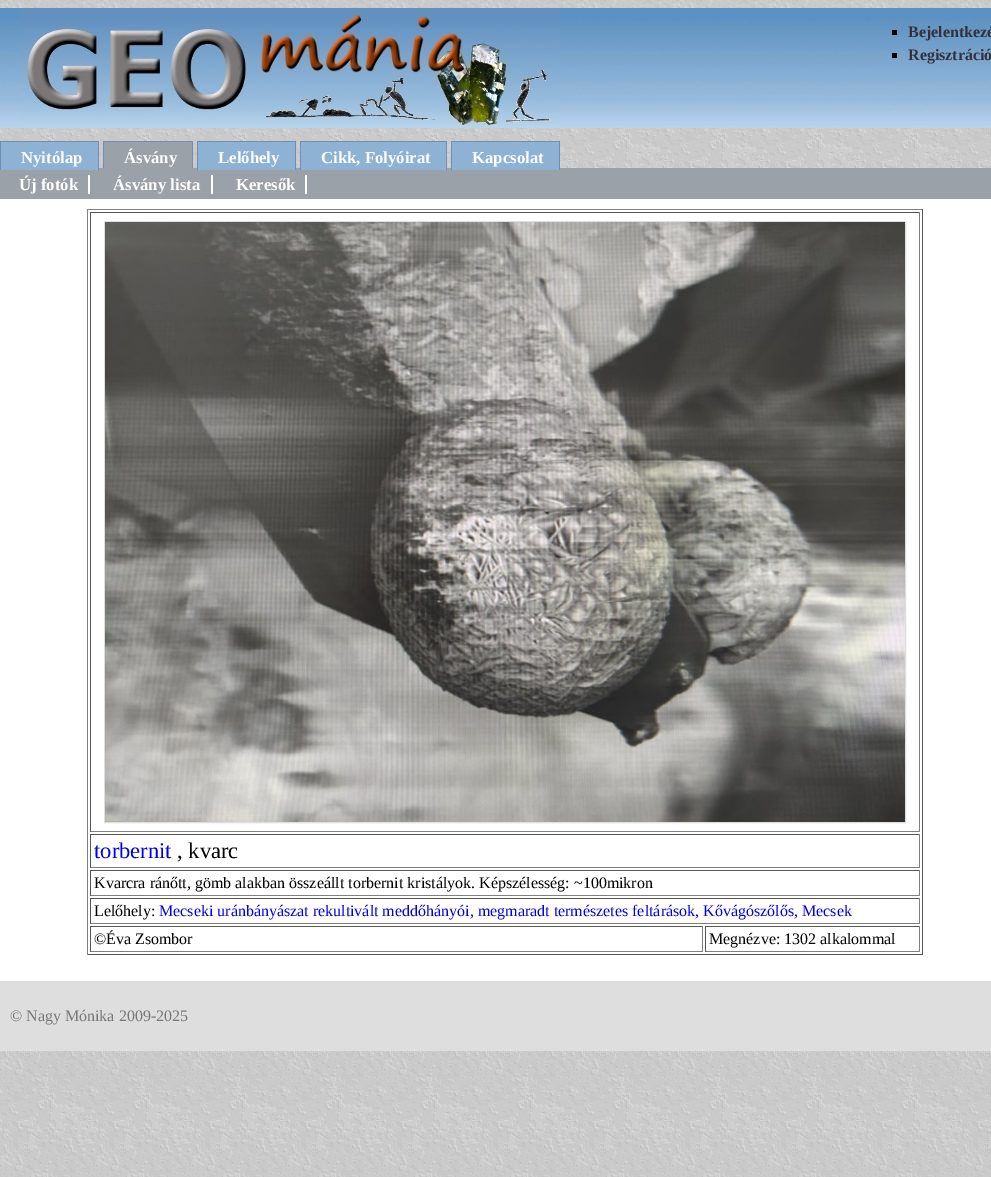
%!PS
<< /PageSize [991 1177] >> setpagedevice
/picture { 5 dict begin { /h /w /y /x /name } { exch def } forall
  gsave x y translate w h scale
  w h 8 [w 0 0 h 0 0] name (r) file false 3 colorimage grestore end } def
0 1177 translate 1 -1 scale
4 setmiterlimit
1 setgray
0 0 991 1177 rectfill
(img1.rgb) 0 0 991 1177 picture
(img2.rgb) 0 8 991 120 picture
(img3.rgb) 20 8 540 120 picture
0 setgray
892 30 5 5 rectfill
/LiberationSerif-Bold [16 0 0 -16 0 0] selectfont
0.204 0.192 0.243 setrgbcolor
908 37 moveto (Bejelentkezé) show
0 setgray
892 53 5 5 rectfill
0.204 0.192 0.243 setrgbcolor
908 60 moveto (Regisztráció) show
0.604 0.631 0.663 setrgbcolor
0 168 991 31 rectfill
0.553 0.698 0.831 setrgbcolor
1 142 97 28 rectfill
/LiberationSerif-Bold [16.75 0 0 -16.75 0 0] selectfont
1 setgray
21 163 moveto (Nyitólap) show
0.451 0.549 0.729 setrgbcolor
0 141 99 1 rectfill
98 141 1 29 rectfill
0 141 1 29 rectfill
0.604 0.631 0.663 setrgbcolor
104 142 88 26 rectfill
1 setgray
124 163 moveto (Ásvány) show
0.451 0.549 0.729 setrgbcolor
103 141 90 1 rectfill
192 141 1 27 rectfill
103 141 1 27 rectfill
0.553 0.698 0.831 setrgbcolor
198 142 97 28 rectfill
1 setgray
218 163 moveto (Lelőhely) show
0.451 0.549 0.729 setrgbcolor
197 141 99 1 rectfill
295 141 1 29 rectfill
197 141 1 29 rectfill
0.553 0.698 0.831 setrgbcolor
301 142 145 28 rectfill
1 setgray
321 163 moveto (Cikk, Folyóirat) show
0.451 0.549 0.729 setrgbcolor
300 141 147 1 rectfill
446 141 1 29 rectfill
300 141 1 29 rectfill
0.553 0.698 0.831 setrgbcolor
452 142 107 28 rectfill
1 setgray
472 163 moveto (Kapcsolat) show
0.451 0.549 0.729 setrgbcolor
451 141 109 1 rectfill
559 141 1 29 rectfill
451 141 1 29 rectfill
1 setgray
0 199 991 782 rectfill
19 190 moveto (Új fotók) show
88 175 2 19 rectfill
113 190 moveto (Ásvány lista) show
211 175 2 19 rectfill
236 190 moveto (Keresők) show
305 175 2 19 rectfill
0.502 setgray
87 209 836 1 rectfill
0.333 setgray
922 209 1 746 rectfill
87 954 836 1 rectfill
0.502 setgray
87 209 1 746 rectfill
0.333 setgray
90 212 830 1 rectfill
0.502 setgray
919 212 1 620 rectfill
90 831 830 1 rectfill
0.333 setgray
90 212 1 620 rectfill
0.871 setgray
104.5 221.5 801 601 rectstroke
(img4.rgb) 105 222 800 600 picture
0.333 setgray
90 834 830 1 rectfill
0.502 setgray
919 834 1 34 rectfill
90 867 830 1 rectfill
0.333 setgray
90 834 1 34 rectfill
/LiberationSerif-Regular [22.5 0 0 -22.5 0 0] selectfont
0 0 0.933 setrgbcolor
94 858 moveto (torbernit) show
0 setgray
177 858 moveto (, kvarc) show
0.333 setgray
90 870 830 1 rectfill
0.502 setgray
919 870 1 26 rectfill
90 895 830 1 rectfill
0.333 setgray
90 870 1 26 rectfill
/LiberationSerif-Regular [16 0 0 -16 0 0] selectfont
0 setgray
94 888 moveto (Kvarcra ránőtt, gömb alakban összeállt torbernit kristályok. Képszélesség: ~100mikron) show
0.333 setgray
90 898 830 1 rectfill
0.502 setgray
919 898 1 26 rectfill
90 923 830 1 rectfill
0.333 setgray
90 898 1 26 rectfill
0 setgray
94 916 moveto (Lelőhely:) show
0 0 0.933 setrgbcolor
159 916 moveto (Mecseki uránbányászat rekultivált meddőhányói, megmaradt természetes feltárások, Kővágószőlős, Mecsek) show
0.333 setgray
90 926 613 1 rectfill
0.502 setgray
702 926 1 26 rectfill
90 951 613 1 rectfill
0.333 setgray
90 926 1 26 rectfill
0 setgray
94 944 moveto (©Éva Zsombor) show
0.333 setgray
705 926 215 1 rectfill
0.502 setgray
919 926 1 26 rectfill
705 951 215 1 rectfill
0.333 setgray
705 926 1 26 rectfill
0 setgray
709 944 moveto (Megnézve: 1302 alkalommal) show
0.871 setgray
0 981 991 70 rectfill
0.467 setgray
10 1021 moveto (© Nagy Mónika 2009-2025) show
showpage
